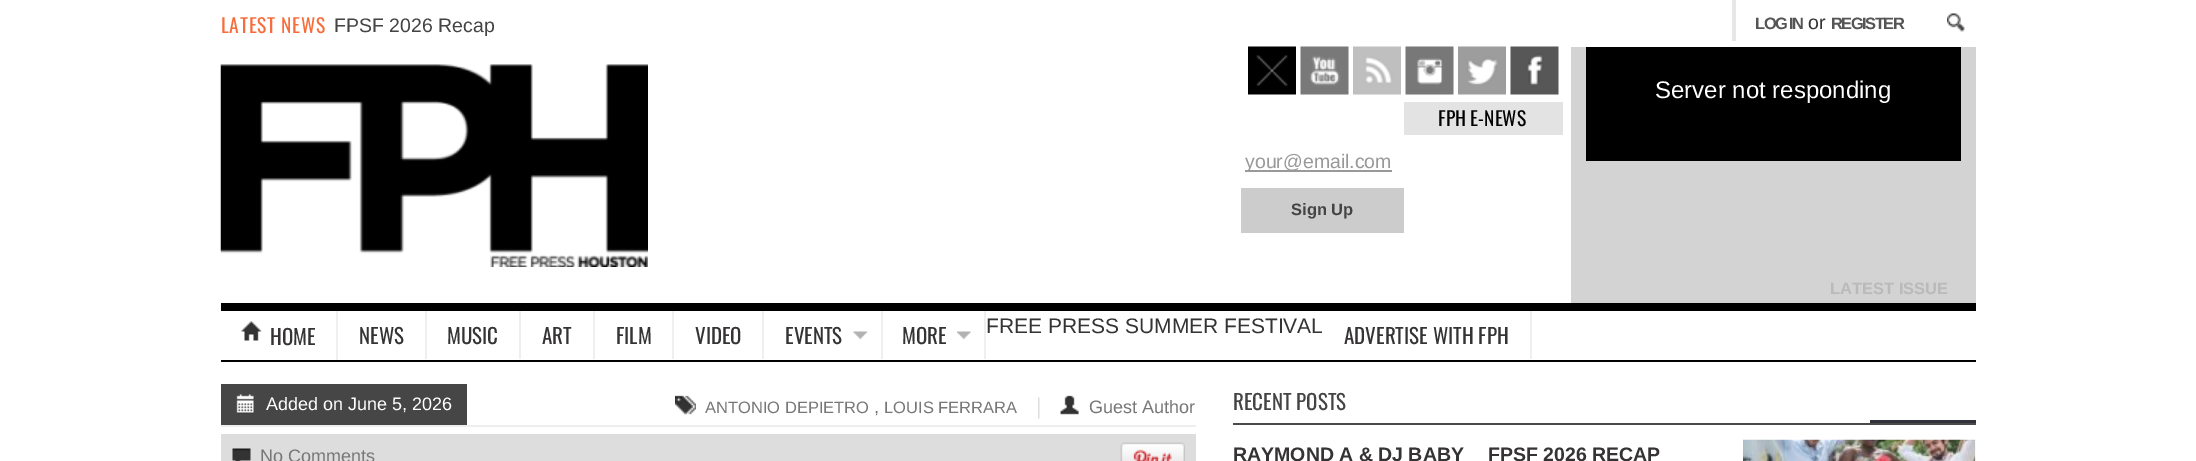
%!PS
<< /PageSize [2196 461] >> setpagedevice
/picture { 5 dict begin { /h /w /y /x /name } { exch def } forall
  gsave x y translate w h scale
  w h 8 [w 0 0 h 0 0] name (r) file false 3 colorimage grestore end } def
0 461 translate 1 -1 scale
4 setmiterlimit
1 setgray
0 0 2196 461 rectfill
/Oswald-Regular [19.5 0 0 -19.5 0 0] selectfont
0.969 0.424 0.227 setrgbcolor
221 33 moveto 0.75 0 (LATEST NEWS) ashow
/LiberationSans-Regular [19.5 0 0 -19.5 0 0] selectfont
0.267 setgray
334 32 moveto (FPSF 2026 Recap) show
0.906 setgray
1732 0 4 41 rectfill
/LiberationSans-Bold [16.5 0 0 -16.5 0 0] selectfont
0.333 setgray
1755 29 moveto -1.5 0 (LOG IN) ashow
/LiberationSans-Regular [19.5 0 0 -19.5 0 0] selectfont
0.208 0.2 0.2 setrgbcolor
1808 29 moveto (or) show
/LiberationSans-Bold [16.5 0 0 -16.5 0 0] selectfont
0.333 setgray
1831 29 moveto -1.5 0 (REGISTER) ashow
(img1.rgb) 1947 13 18 19 picture
0 setgray
221 303 1755 8 rectfill
(img2.rgb) 220 64 428 203 picture
(img3.rgb) 1248 46 48 49 picture
(img4.rgb) 1300 46 49 49 picture
(img5.rgb) 1353 46 48 49 picture
(img6.rgb) 1405 46 49 49 picture
(img7.rgb) 1458 46 48 49 picture
(img8.rgb) 1510 46 49 49 picture
0.89 setgray
1404 102 159 33 rectfill
/Oswald-Regular [19.5 0 0 -19.5 0 0] selectfont
0 setgray
1438 126 moveto (FPH E-NEWS) show
0.6 setgray
1245 170 147 2 rectfill
/LiberationSans-Regular [19.5 0 0 -19.5 0 0] selectfont
1245 168 moveto (your@email.com) show
0.8 setgray
1241 188 163 45 rectfill
/LiberationSans-Bold [16.5 0 0 -16.5 0 0] selectfont
0.267 setgray
1291 215 moveto (Sign Up) show
0.827 setgray
1571 47 405 256 rectfill
0 setgray
1586 47 375 114 rectfill
/LiberationSans-Regular [24 0 0 -24 0 0] selectfont
1 setgray
1655 98 moveto (Server not responding) show
/LiberationSans-Bold [16.5 0 0 -16.5 0 0] selectfont
0.729 setgray
1830 294 moveto (LATEST ISSUE) show
0 setgray
221 360 1755 2 rectfill
0.937 setgray
336 311 2 49 rectfill
(img9.rgb) 241 321 21 20 picture
/Oswald-Regular [21 0 0 -21 0 0] selectfont
0.208 0.2 0.2 setrgbcolor
270 345 moveto (HOME) show
0.937 setgray
425 311 2 48 rectfill
0.208 0.2 0.2 setrgbcolor
359 344 moveto (NEWS) show
0.937 setgray
519 311 2 48 rectfill
0.208 0.2 0.2 setrgbcolor
447 344 moveto (MUSIC) show
0.937 setgray
593 311 2 48 rectfill
0.208 0.2 0.2 setrgbcolor
542 344 moveto (ART) show
0.937 setgray
672 311 2 48 rectfill
0.208 0.2 0.2 setrgbcolor
616 344 moveto (FILM) show
0.937 setgray
762 311 2 48 rectfill
0.208 0.2 0.2 setrgbcolor
695 344 moveto (VIDEO) show
(img10.rgb) 853 331 15 8 picture
0.937 setgray
881 311 2 48 rectfill
0.208 0.2 0.2 setrgbcolor
785 344 moveto (EVENTS) show
(img11.rgb) 957 331 14 8 picture
0.937 setgray
984 311 2 48 rectfill
0.208 0.2 0.2 setrgbcolor
902 344 moveto (MORE) show
/LiberationSans-Regular [21 0 0 -21 0 0] selectfont
986 333 moveto (FREE PRESS SUMMER FESTIVAL) show
0.937 setgray
1530 311 2 48 rectfill
/Oswald-Regular [21 0 0 -21 0 0] selectfont
0.208 0.2 0.2 setrgbcolor
1344 344 moveto (ADVERTISE WITH FPH) show
0.933 setgray
221 425 975 2 rectfill
0.275 setgray
221 384 246 41 rectfill
(img12.rgb) 236 394 18 20 picture
/LiberationSans-Regular [18 0 0 -18 0 0] selectfont
1 setgray
266 410 moveto (Added on June 5, 2026) show
(img13.rgb) 1038 397 2 22 picture
(img14.rgb) 675 395 21 20 picture
/LiberationSans-Regular [16.5 0 0 -16.5 0 0] selectfont
0.467 setgray
705 413 moveto (ANTONIO DEPIETRO) show
/LiberationSans-Regular [18 0 0 -18 0 0] selectfont
874 413 moveto (,) show
/LiberationSans-Regular [16.5 0 0 -16.5 0 0] selectfont
884 413 moveto (LOUIS FERRARA) show
(img15.rgb) 1060 395 19 20 picture
/LiberationSans-Regular [18 0 0 -18 0 0] selectfont
1089 413 moveto (Guest Author) show
0.867 setgray
221 434 975 27 rectfill
(img16.rgb) 232 448 19 13 picture
0.467 setgray
260 462 moveto (No Comments) show
(img17.rgb) 1120 442 65 19 picture
0.196 0.196 0.227 setrgbcolor
1870 420 106 3 rectfill
0.29 setgray
1233 423 743 2 rectfill
/Oswald-Regular [21 0 0 -21 0 0] selectfont
0.267 setgray
1233 410 moveto (RECENT POSTS) show
/LiberationSans-Bold [19.5 0 0 -19.5 0 0] selectfont
0.208 0.2 0.2 setrgbcolor
1233 461 moveto (RAYMOND A & DJ BABY) show
1488 461 moveto (FPSF 2026 RECAP) show
(img18.rgb) 1743 439 233 22 picture
showpage
